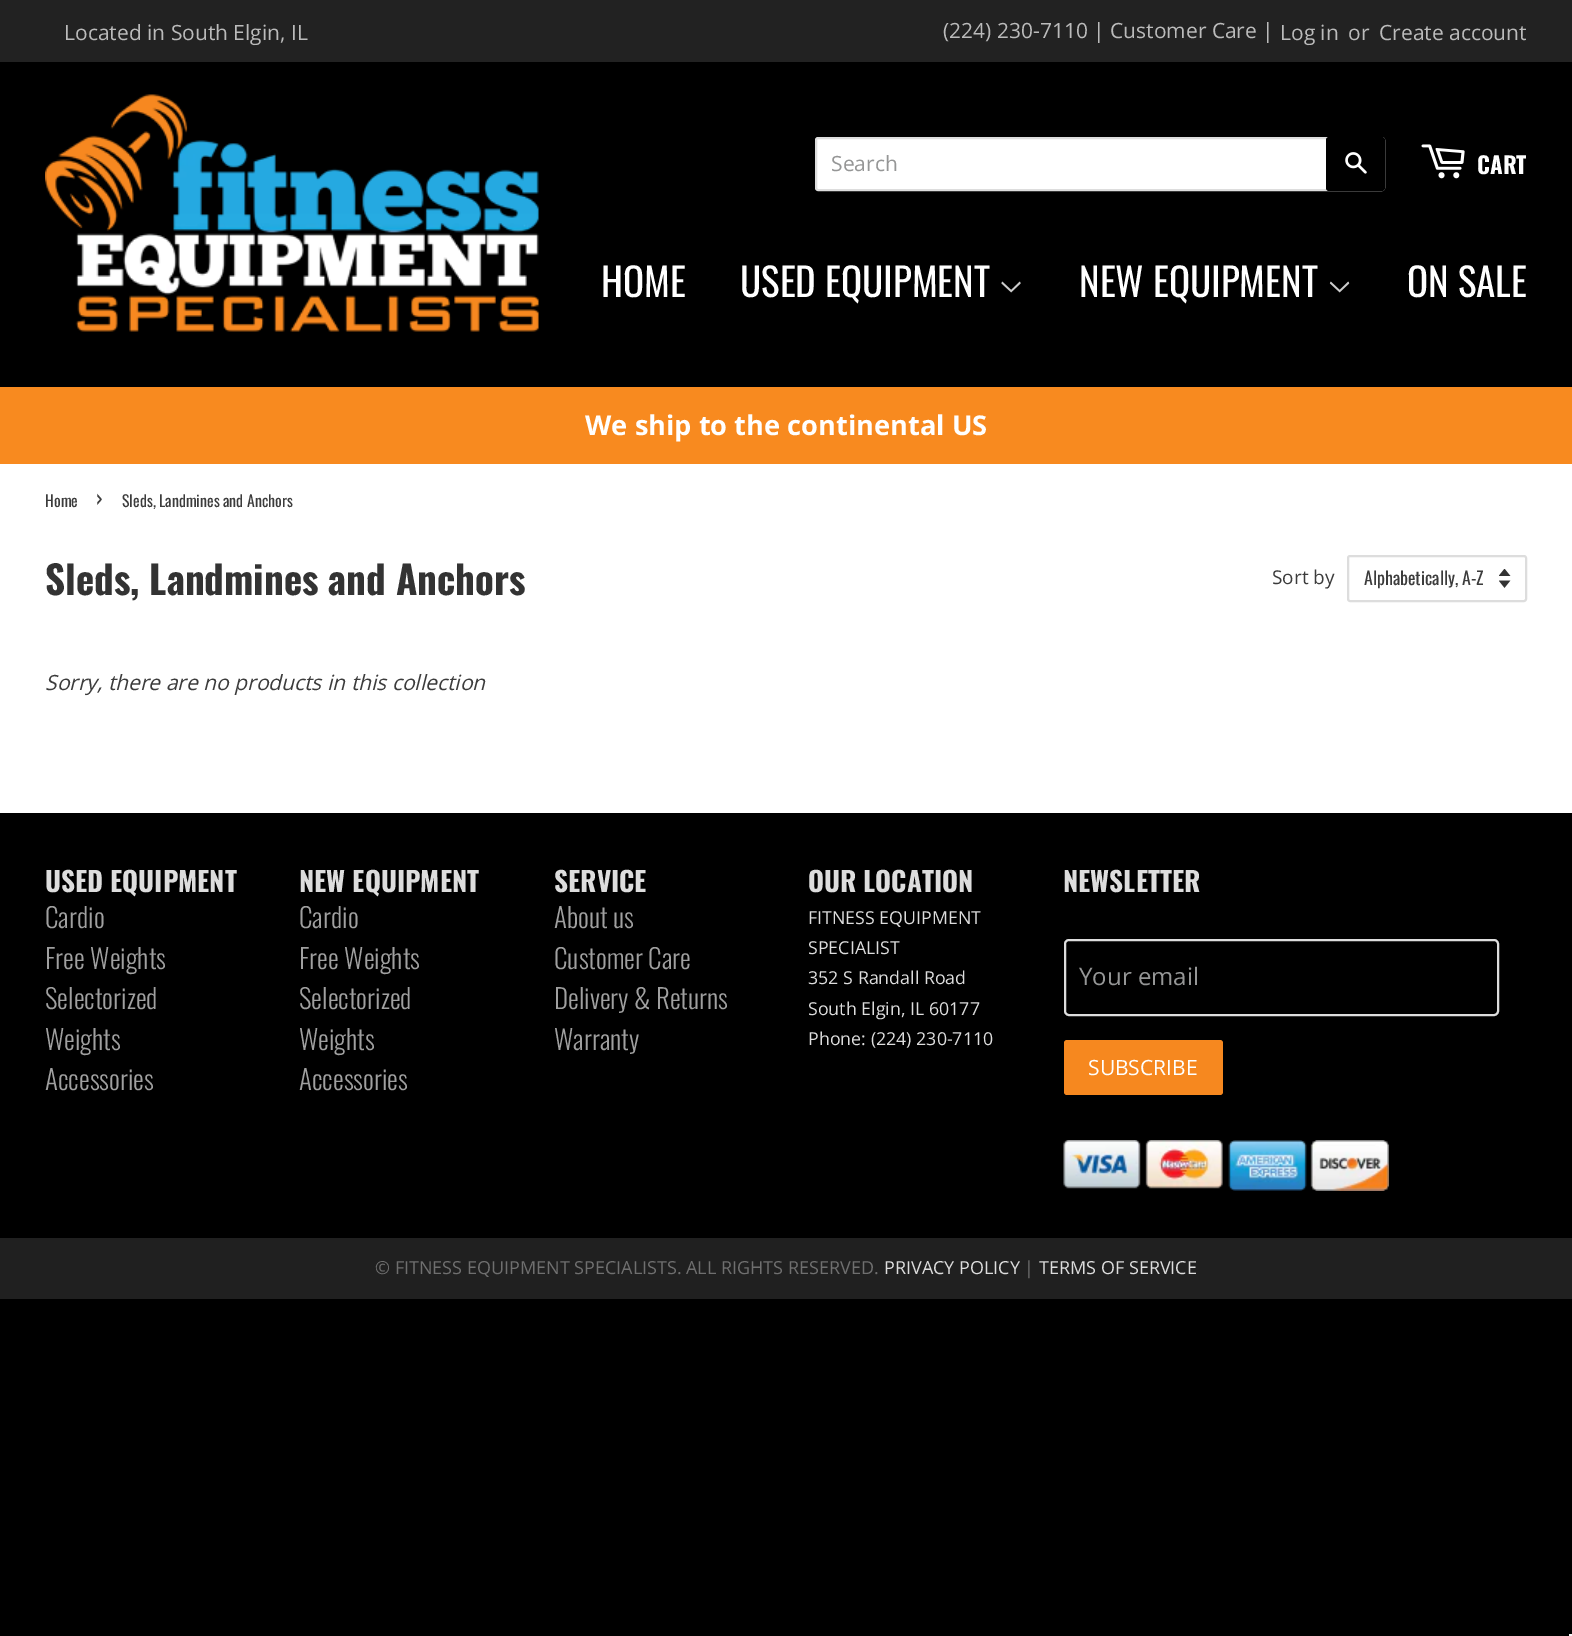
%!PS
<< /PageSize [1572 1636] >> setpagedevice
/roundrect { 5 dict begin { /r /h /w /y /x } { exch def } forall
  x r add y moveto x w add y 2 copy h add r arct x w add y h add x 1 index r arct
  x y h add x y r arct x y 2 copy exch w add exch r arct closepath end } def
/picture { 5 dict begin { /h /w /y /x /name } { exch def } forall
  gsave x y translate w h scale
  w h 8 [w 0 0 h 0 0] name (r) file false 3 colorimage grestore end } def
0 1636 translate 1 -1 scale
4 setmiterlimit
0 setgray
0 0 1572 1636 rectfill
1 setgray
0 464 1572 349 rectfill
0.133 setgray
0 0 1572 62 rectfill
/OpenSans-Regular [21 0 0 -21 0 0] selectfont
0.733 setgray
64 40 moveto (Located in South Elgin, IL) show
943 38 moveto (\(224\) 230-7110 | Customer Care |) show
1280 40 moveto (Log in) show
1348 40 moveto (or) show
1379 40 moveto (Create account) show
(img1.rgb) 45 94 494 238 picture
1 setgray
816 138 568 52 2 roundrect gsave fill grestore
0.867 setgray
2 setlinewidth
stroke
0.584 0.588 0.588 setrgbcolor
831 171 moveto (Search) show
0 setgray
1326 137 59 54 3 roundrect fill
(img2.rgb) 1345 152 22 22 picture
(img3.rgb) 1421 144 44 35 picture
/Oswald-Bold [23 0 0 -23 0 0] selectfont
1 setgray
1477 174 moveto (CART) show
/Oswald-Regular [39 0 0 -39 0 0] selectfont
601 297 moveto (HOME) show
740 297 moveto (USED EQUIPMENT) show
(img4.rgb) 1001 281 20 12 picture
1079 297 moveto (NEW EQUIPMENT) show
(img5.rgb) 1329 281 21 12 picture
1407 297 moveto (ON SALE) show
0.973 0.541 0.122 setrgbcolor
0 387 1572 77 rectfill
/OpenSans-Bold [27.25 0 0 -27.25 0 0] selectfont
1 setgray
585 435 moveto (We ship to the continental US) show
/Oswald-Regular [15.75 0 0 -15.75 0 0] selectfont
0.235 setgray
45 507 moveto (Home) show
/Oswald-Regular [22 0 0 -22 0 0] selectfont
96 507 moveto (›) show
/Oswald-Regular [15.75 0 0 -15.75 0 0] selectfont
122 507 moveto (Sleds, Landmines and Anchors) show
/Oswald-Bold [39 0 0 -39 0 0] selectfont
0.2 setgray
45 595 moveto (Sleds, Landmines and Anchors) show
/OpenSans-Regular [19 0 0 -19 0 0] selectfont
0.235 setgray
1272 584 moveto (Sort by) show
(img6.rgb) 1499 569 12 19 picture
0.867 setgray
1348 556 178 45 2 roundrect stroke
/Oswald-Regular [17.8 0 0 -17.8 0 0] selectfont
0.235 setgray
1364 585 moveto (Alphabetically, A-Z) show
/OpenSans-Italic [21 0 0 -21 0 0] selectfont
45 690 moveto (Sorry, there are no products in this collection) show
/Oswald-Bold [27.25 0 0 -27.25 0 0] selectfont
0.867 setgray
45 892 moveto (USED EQUIPMENT) show
/Oswald-Light [27 0 0 -27 0 0] selectfont
0.627 setgray
45 928 moveto (Cardio) show
45 969 moveto (Free Weights) show
45 1009 moveto (Selectorized) show
45 1050 moveto (Weights) show
45 1090 moveto (Accessories) show
/Oswald-Bold [27.25 0 0 -27.25 0 0] selectfont
0.867 setgray
299 892 moveto (NEW EQUIPMENT) show
/Oswald-Light [27 0 0 -27 0 0] selectfont
0.627 setgray
299 928 moveto (Cardio) show
299 969 moveto (Free Weights) show
299 1009 moveto (Selectorized) show
299 1050 moveto (Weights) show
299 1090 moveto (Accessories) show
/Oswald-Bold [27.25 0 0 -27.25 0 0] selectfont
0.867 setgray
554 892 moveto (SERVICE) show
/Oswald-Light [27 0 0 -27 0 0] selectfont
0.627 setgray
554 928 moveto (About us) show
554 969 moveto (Customer Care) show
554 1009 moveto (Delivery & Returns) show
554 1050 moveto (Warranty) show
/Oswald-Bold [27.25 0 0 -27.25 0 0] selectfont
0.867 setgray
808 892 moveto (OUR LOCATION) show
/OpenSans-Regular [17.8 0 0 -17.8 0 0] selectfont
808 924 moveto (FITNESS EQUIPMENT) show
808 954 moveto (SPECIALIST) show
808 984 moveto (352 S Randall Road) show
808 1015 moveto (South Elgin, IL 60177) show
808 1045 moveto (Phone: \(224\) 230-7110) show
/Oswald-Bold [27.25 0 0 -27.25 0 0] selectfont
1063 892 moveto (NEWSLETTER) show
1065 940 433 75 4 roundrect stroke
/OpenSans-Regular [24 0 0 -24 0 0] selectfont
0.584 0.588 0.588 setrgbcolor
1079 985 moveto (Your email) show
0.965 0.533 0.122 setrgbcolor
1064 1040 159 55 3 roundrect fill
/OpenSans-Regular [21 0 0 -21 0 0] selectfont
1 setgray
1088 1075 moveto (SUBSCRIBE) show
(img7.rgb) 1063 1140 326 51 picture
0.125 setgray
0 1238 1572 61 rectfill
/OpenSans-Regular [18 0 0 -18 0 0] selectfont
0.435 setgray
375 1274 moveto (© FITNESS EQUIPMENT SPECIALISTS. ALL RIGHTS RESERVED.) show
0.867 setgray
884 1274 moveto (PRIVACY POLICY) show
0.435 setgray
1024 1274 moveto (|) show
0.867 setgray
1039 1274 moveto (TERMS OF SERVICE) show
0.961 setgray
1569 1634 3 2 rectfill
showpage
